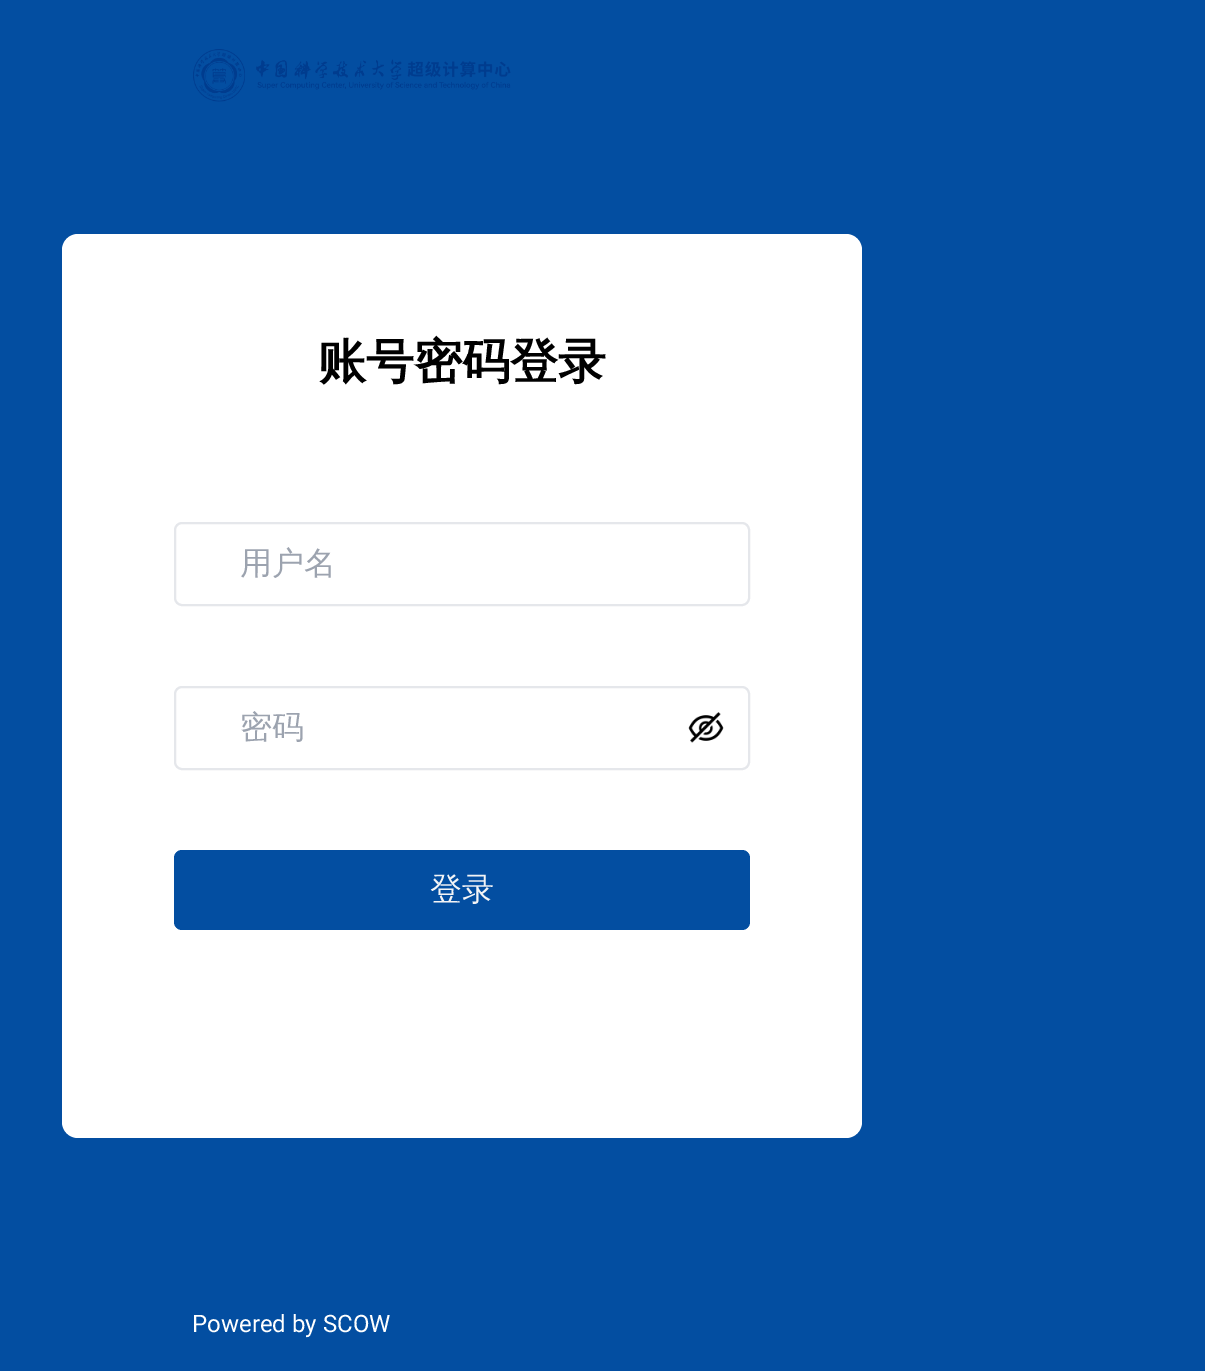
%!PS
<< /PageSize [1205 1371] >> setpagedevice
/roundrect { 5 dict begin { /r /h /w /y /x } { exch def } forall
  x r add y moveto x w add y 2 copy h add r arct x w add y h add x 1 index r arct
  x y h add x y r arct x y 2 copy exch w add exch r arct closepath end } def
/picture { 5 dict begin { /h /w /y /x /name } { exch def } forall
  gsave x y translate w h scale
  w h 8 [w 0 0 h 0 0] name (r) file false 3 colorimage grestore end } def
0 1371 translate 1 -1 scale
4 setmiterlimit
0.012 0.306 0.631 setrgbcolor
0 0 1205 1371 rectfill
(img1.rgb) 193 49 318 53 picture
1 setgray
62 234 800 904 16 roundrect fill
/WenQuanYiZenHei-Bold [48 0 0 -48 0 0] selectfont
0 setgray
318 378 moveto (账号密码登录) show
0.898 0.906 0.922 setrgbcolor
2 setlinewidth
175 523 574 82 7 roundrect stroke
/WenQuanYiZenHei-Medium [32 0 0 -32 0 0] selectfont
0.612 0.639 0.686 setrgbcolor
240 574 moveto (用户名) show
0.898 0.906 0.922 setrgbcolor
175 687 574 82 7 roundrect stroke
0.612 0.639 0.686 setrgbcolor
240 738 moveto (密码) show
(img2.rgb) 688 712 36 31 picture
0.012 0.306 0.631 setrgbcolor
174 850 576 80 8 roundrect fill
0.953 0.957 0.965 setrgbcolor
430 900 moveto (登录) show
/Roboto-Regular [24 0 0 -24 0 0] selectfont
1 setgray
192 1332 moveto (Powered by SCOW) show
showpage
